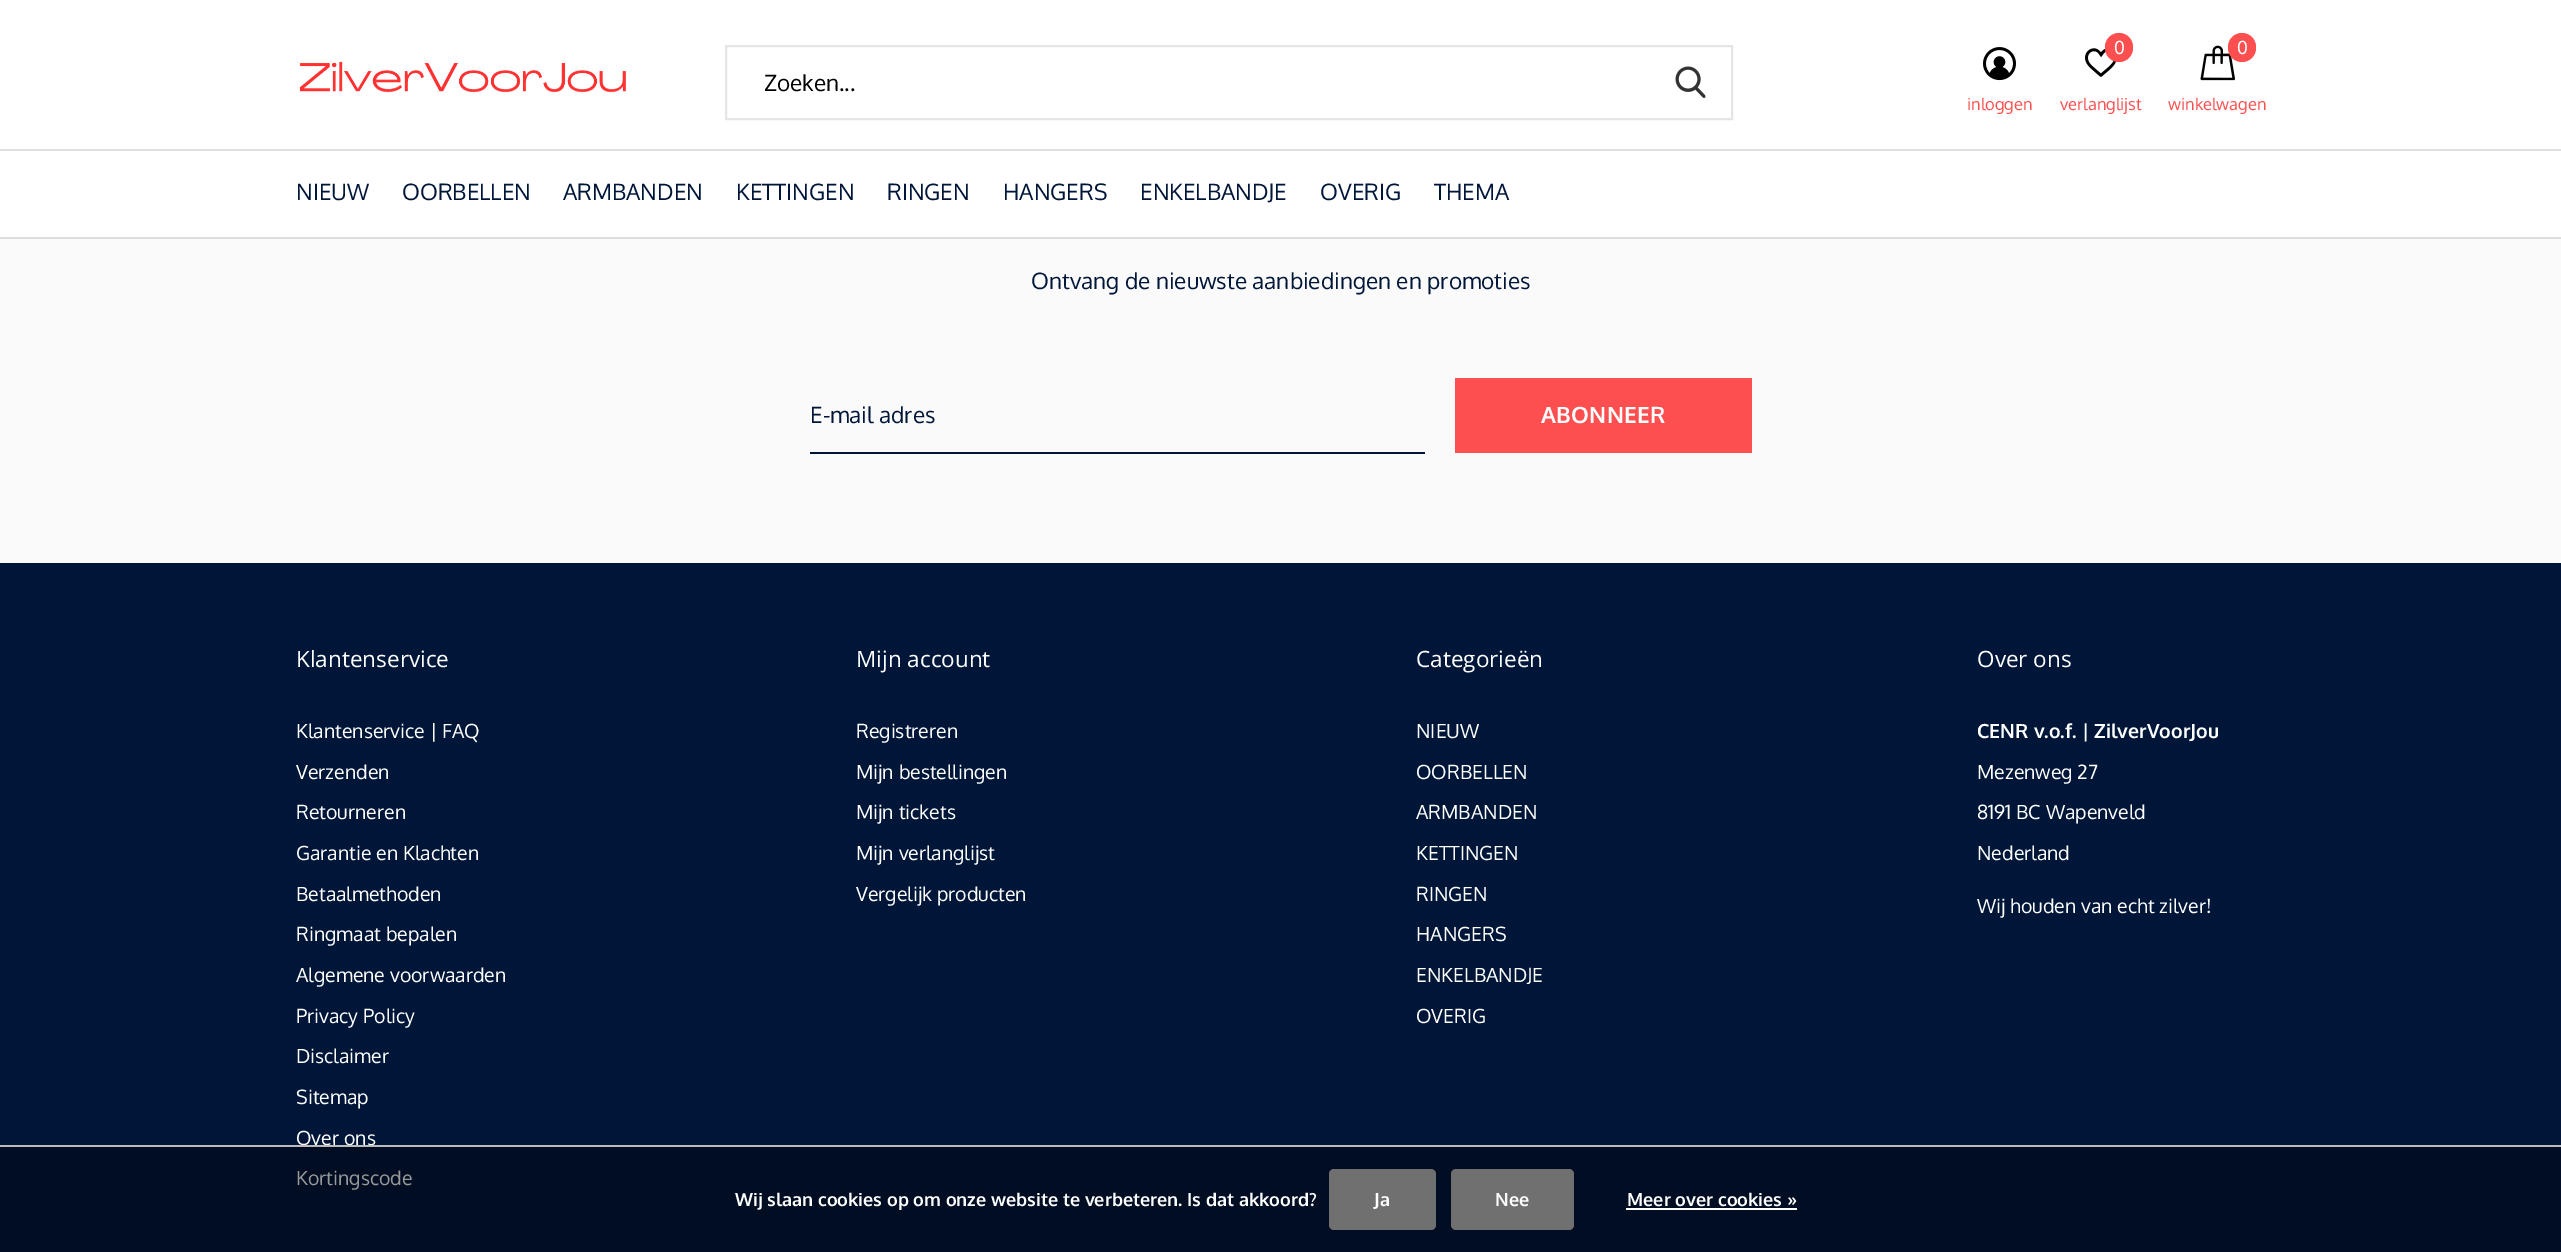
%!PS
<< /PageSize [2561 1252] /PageUsesTransparency true >> setpagedevice
/alpha { dup .setfillconstantalpha .setstrokeconstantalpha } def
/roundrect { 5 dict begin { /r /h /w /y /x } { exch def } forall
  x r add y moveto x w add y 2 copy h add r arct x w add y h add x 1 index r arct
  x y h add x y r arct x y 2 copy exch w add exch r arct closepath end } def
/picture { 5 dict begin { /h /w /y /x /name } { exch def } forall
  gsave x y translate w h scale
  w h 8 [w 0 0 h 0 0] name (r) file false 3 colorimage grestore end } def
0 .pushpdf14devicefilter
0 1252 translate 1 -1 scale
4 setmiterlimit
0 0.086 0.224 setrgbcolor
0 0 2561 1252 rectfill
1 setgray
0 0 2561 149 rectfill
(img1.rgb) 1983 47 33 34 picture
/Oxygen-Regular [16.5 0 0 -16.5 0 0] selectfont
0.992 0.31 0.31 setrgbcolor
1967 110 moveto (inloggen) show
(img2.rgb) 2085 48 32 29 picture
2105 33 28 29 14 roundrect fill
/Oxygen-Regular [18 0 0 -18 0 0] selectfont
1 setgray
2114 54 moveto (0) show
/Oxygen-Regular [16.5 0 0 -16.5 0 0] selectfont
0.992 0.31 0.31 setrgbcolor
2060 110 moveto (verlanglijst) show
(img3.rgb) 2200 45 35 36 picture
2228 33 28 29 14 roundrect fill
/Oxygen-Regular [18 0 0 -18 0 0] selectfont
1 setgray
2237 54 moveto (0) show
/Oxygen-Regular [16.5 0 0 -16.5 0 0] selectfont
0.992 0.31 0.31 setrgbcolor
2168 110 moveto (winkelwagen) show
1 setgray
0 151 2561 86 rectfill
0.875 setgray
0 149 2561 2 rectfill
0 237 2561 2 rectfill
/Oxygen-Regular [22.5 0 0 -22.5 0 0] selectfont
0 0.086 0.224 setrgbcolor
296 200 moveto (NIEUW) show
402 200 moveto (OORBELLEN) show
563 200 moveto (ARMBANDEN) show
736 200 moveto (KETTINGEN) show
887 200 moveto (RINGEN) show
1003 200 moveto (HANGERS) show
1140 200 moveto (ENKELBANDJE) show
1320 200 moveto (OVERIG) show
1434 200 moveto (THEMA) show
(img4.rgb) 299 61 327 32 picture
0.898 setgray
2 setlinewidth
726 46 1006 73 rectstroke
0 setgray
764 91 moveto (Zoeken...) show
(img5.rgb) 1675 66 31 32 picture
0.98 setgray
0 239 2561 324 rectfill
0 0.086 0.224 setrgbcolor
1031 289 moveto (Ontvang de nieuwste aanbiedingen en promoties) show
810 452 615 2 rectfill
810 423 moveto (E-mail adres) show
0.992 0.31 0.31 setrgbcolor
1455 378 297 75 rectfill
/Oxygen-Bold [22.5 0 0 -22.5 0 0] selectfont
1 setgray
1541 423 moveto 0.25 0 (ABONNEER) ashow
/OpenSans-Regular [22.5 0 0 -22.5 0 0] selectfont
296 667 moveto (Klantenservice) show
/Oxygen-Regular [19.5 0 0 -19.5 0 0] selectfont
296 738 moveto (Klantenservice | FAQ) show
296 779 moveto (Verzenden) show
296 819 moveto (Retourneren) show
296 860 moveto (Garantie en Klachten) show
296 901 moveto (Betaalmethoden) show
296 941 moveto (Ringmaat bepalen) show
296 982 moveto (Algemene voorwaarden) show
296 1023 moveto (Privacy Policy) show
296 1063 moveto (Disclaimer) show
296 1104 moveto (Sitemap) show
296 1145 moveto (Over ons) show
296 1185 moveto (Kortingscode) show
/OpenSans-Regular [22.5 0 0 -22.5 0 0] selectfont
856 667 moveto (Mijn account) show
/Oxygen-Regular [19.5 0 0 -19.5 0 0] selectfont
856 738 moveto (Registreren) show
856 779 moveto (Mijn bestellingen) show
856 819 moveto (Mijn tickets) show
856 860 moveto (Mijn verlanglijst) show
856 901 moveto (Vergelijk producten) show
/OpenSans-Regular [22.5 0 0 -22.5 0 0] selectfont
1416 667 moveto (Categorieën) show
/Oxygen-Regular [19.5 0 0 -19.5 0 0] selectfont
1416 738 moveto (NIEUW) show
1416 779 moveto (OORBELLEN) show
1416 819 moveto (ARMBANDEN) show
1416 860 moveto (KETTINGEN) show
1416 901 moveto (RINGEN) show
1416 941 moveto (HANGERS) show
1416 982 moveto (ENKELBANDJE) show
1416 1023 moveto (OVERIG) show
/OpenSans-Regular [22.5 0 0 -22.5 0 0] selectfont
1977 667 moveto (Over ons) show
/Oxygen-Bold [19.5 0 0 -19.5 0 0] selectfont
1977 738 moveto (CENR v.o.f. | ZilverVoorJou) show
/Oxygen-Regular [19.5 0 0 -19.5 0 0] selectfont
1977 779 moveto (Mezenweg 27) show
1977 819 moveto (8191 BC Wapenveld) show
1977 860 moveto (Nederland) show
1977 913 moveto (Wij houden van echt zilver!) show
0.4 alpha
0 setgray
0 1147 2561 105 rectfill
1 alpha
0.733 setgray
0 1145 2561 2 rectfill
/Oxygen-Bold [18 0 0 -18 0 0] selectfont
1 setgray
735 1206 moveto (Wij slaan cookies op om onze website te verbeteren. Is dat akkoord?) show
0.439 setgray
1329 1169 107 61 5 roundrect fill
1 setgray
1374 1206 moveto (Ja) show
0.439 setgray
1451 1169 123 61 5 roundrect fill
1 setgray
1495 1206 moveto (Nee) show
1627 1206 moveto (Meer over cookies ») show
1626 1208 171 2 rectfill
.poppdf14devicefilter showpage
